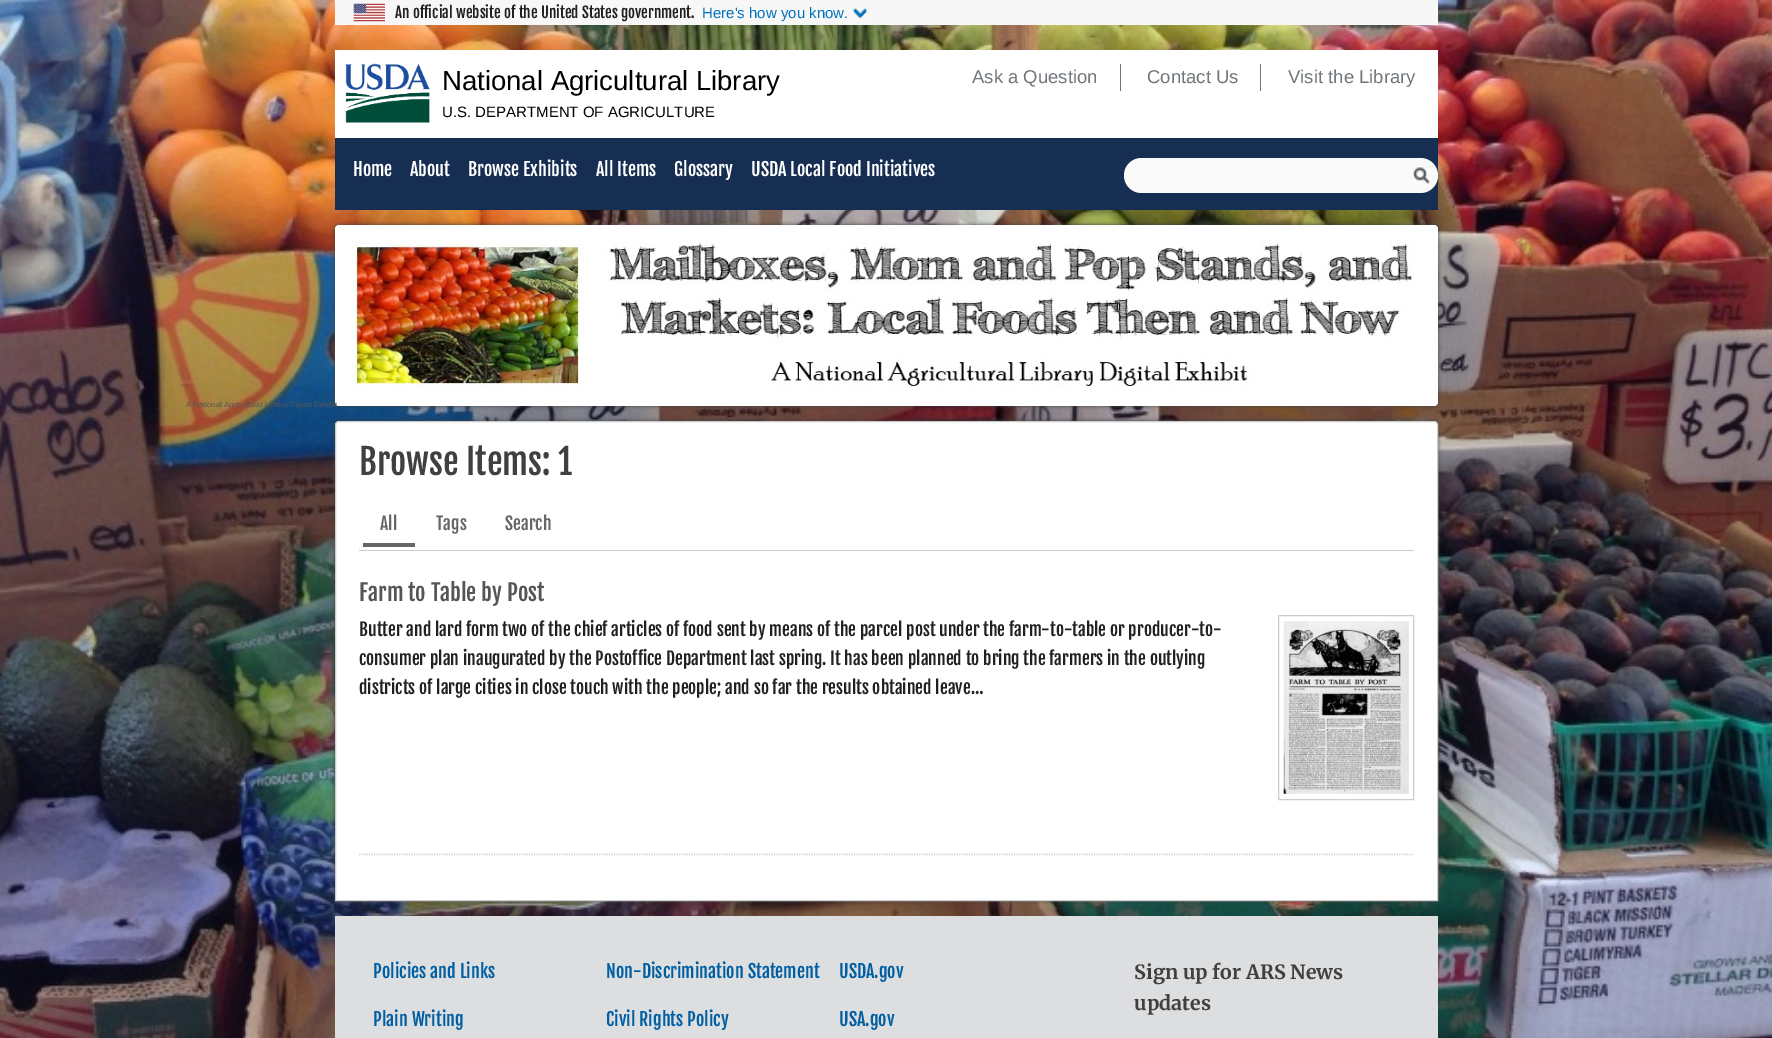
%!PS
<< /PageSize [1772 1038] /PageUsesTransparency true >> setpagedevice
/alpha { dup .setfillconstantalpha .setstrokeconstantalpha } def
/roundrect { 5 dict begin { /r /h /w /y /x } { exch def } forall
  x r add y moveto x w add y 2 copy h add r arct x w add y h add x 1 index r arct
  x y h add x y r arct x y 2 copy exch w add exch r arct closepath end } def
/shadow { 12 dict begin { /a /b /q /h /w /y /x } { exch def } forall gsave /was 0 def
  9 -2 -9 { dup b mul 4 div /e exch def 1 sub .425 mul 2.718 exch exp 1 add a .99 .min exch div /now exch def
    1 1 now sub 1 was sub div sub alpha /was now def
    w h .min e 2 mul add 0 gt { x e sub y e sub w e 2 mul add h e 2 mul add
      q e add b .6 mul add w h .min 2 div e add .min 0 .max roundrect fill } if } for grestore end } def
/picture { 5 dict begin { /h /w /y /x /name } { exch def } forall
  gsave x y translate w h scale
  w h 8 [w 0 0 h 0 0] name (r) file false 3 colorimage grestore end } def
0 .pushpdf14devicefilter
0 1038 translate 1 -1 scale
4 setmiterlimit
1 setgray
0 0 1772 1038 rectfill
(img1.rgb) 0 0 1772 1038 picture
0.969 setgray
335 0 1103 25 rectfill
(img2.rgb) 353 3 32 19 picture
/FjallaOne-Regular [15 0 0 -15 0 0] selectfont
0.129 setgray
395 18 moveto (An official website of the United States government.) show
(img3.rgb) 853 8 14 10 picture
/LiberationSans-Regular [15 0 0 -15 0 0] selectfont
0 0.443 0.737 setrgbcolor
702 18 moveto (Here's how you know.) show
1 setgray
335 50 1103 88 rectfill
(img4.rgb) 345 63 85 60 picture
/LiberationSans-Regular [27.5 0 0 -27.5 0 0] selectfont
0 setgray
442 90 moveto (National Agricultural Library) show
/LiberationSans-Regular [15 0 0 -15 0 0] selectfont
442 117 moveto (U.S. DEPARTMENT OF AGRICULTURE) show
0.443 0.463 0.478 setrgbcolor
1120 64 1 27 rectfill
/LiberationSans-Regular [18.5 0 0 -18.5 0 0] selectfont
972 83 moveto (Ask a Question) show
1260 64 1 27 rectfill
1147 83 moveto (Contact Us) show
1288 83 moveto (Visit the Library) show
0.086 0.18 0.318 setrgbcolor
335 138 1103 72 rectfill
/FjallaOne-Regular [18 0 0 -18 0 0] selectfont
1 setgray
353 176 moveto (Home) show
410 176 moveto (About) show
468 176 moveto (Browse Exhibits) show
596 176 moveto (All Items) show
674 176 moveto (Glossary) show
751 176 moveto (USDA Local Food Initiatives) show
0.98 setgray
1124 158 314 35 17.5 roundrect fill
(img5.rgb) 1413 166 18 19 picture
0.251 setgray
335 225 1103 181 4 2 1 shadow
1 setgray
335 225 1103 181 4 roundrect fill
(img6.rgb) 336 226 1077 179 picture
/LiberationSans-Regular [7.5 0 0 -7.5 0 0] selectfont
0.333 setgray
186 407 moveto 0.1 0 (A National Agricultural Library Digital Exhibit) ashow
0.251 setgray
335 421 1103 480 4 2 1 shadow
1 setgray
newpath 339 421.5 moveto 1434 421.5 lineto 1436 421.5 1437.5 423 1437.5 425 curveto 1437.5 900.5 lineto 335.5 900.5 lineto 335.5 425 lineto 335.5 423 337 421.5 339 421.5 curveto closepath gsave fill grestore
0.8 setgray
stroke
/FjallaOne-Regular [35 0 0 -35 0 0] selectfont
0.251 setgray
359 475 moveto (Browse Items: 1) show
0.8 setgray
359 550 1055 1 rectfill
/FjallaOne-Regular [17.5 0 0 -17.5 0 0] selectfont
0.4 setgray
380 530 moveto (All) show
363 543 52 4 rectfill
436 530 moveto (Tags) show
505 530 moveto (Search) show
0.8 setgray
1.2 setlinewidth
[1.25 1.25] 0 setdash
newpath 359 854.5 moveto 1414 854.5 lineto stroke
/FjallaOne-Regular [22.5 0 0 -22.5 0 0] selectfont
0.333 setgray
359 601 moveto (Farm to Table by Post) show
/FjallaOne-Regular [17.5 0 0 -17.5 0 0] selectfont
0.129 setgray
359 636 moveto (Butter and lard form two of the chief articles of food sent by means of the parcel post under the farm-to-table or producer-to-) show
359 665 moveto (consumer plan inaugurated by the Postoffice Department last spring. It has been planned to bring the farmers in the outlying) show
359 694 moveto (districts of large cities in close touch with the people; and so far the results obtained leave…) show
0.8 setgray
1 setlinewidth
[] 0 setdash
1278.5 615.5 135 184 rectstroke
(img7.rgb) 1283 621 126 173 picture
0.863 0.871 0.878 setrgbcolor
335 916 1103 122 rectfill
/FjallaOne-Regular [18 0 0 -18 0 0] selectfont
0 0.369 0.635 setrgbcolor
373 978 moveto (Policies and Links) show
606 978 moveto (Non-Discrimination Statement) show
839 978 moveto (USDA.gov) show
373 1026 moveto (Plain Writing) show
606 1026 moveto (Civil Rights Policy) show
839 1026 moveto (USA.gov) show
/Merriweather-Bold [19.6 0 0 -19.6 0 0] selectfont
0.251 setgray
1134 979 moveto (Sign up for ARS News) show
1134 1010 moveto (updates) show
.poppdf14devicefilter showpage
